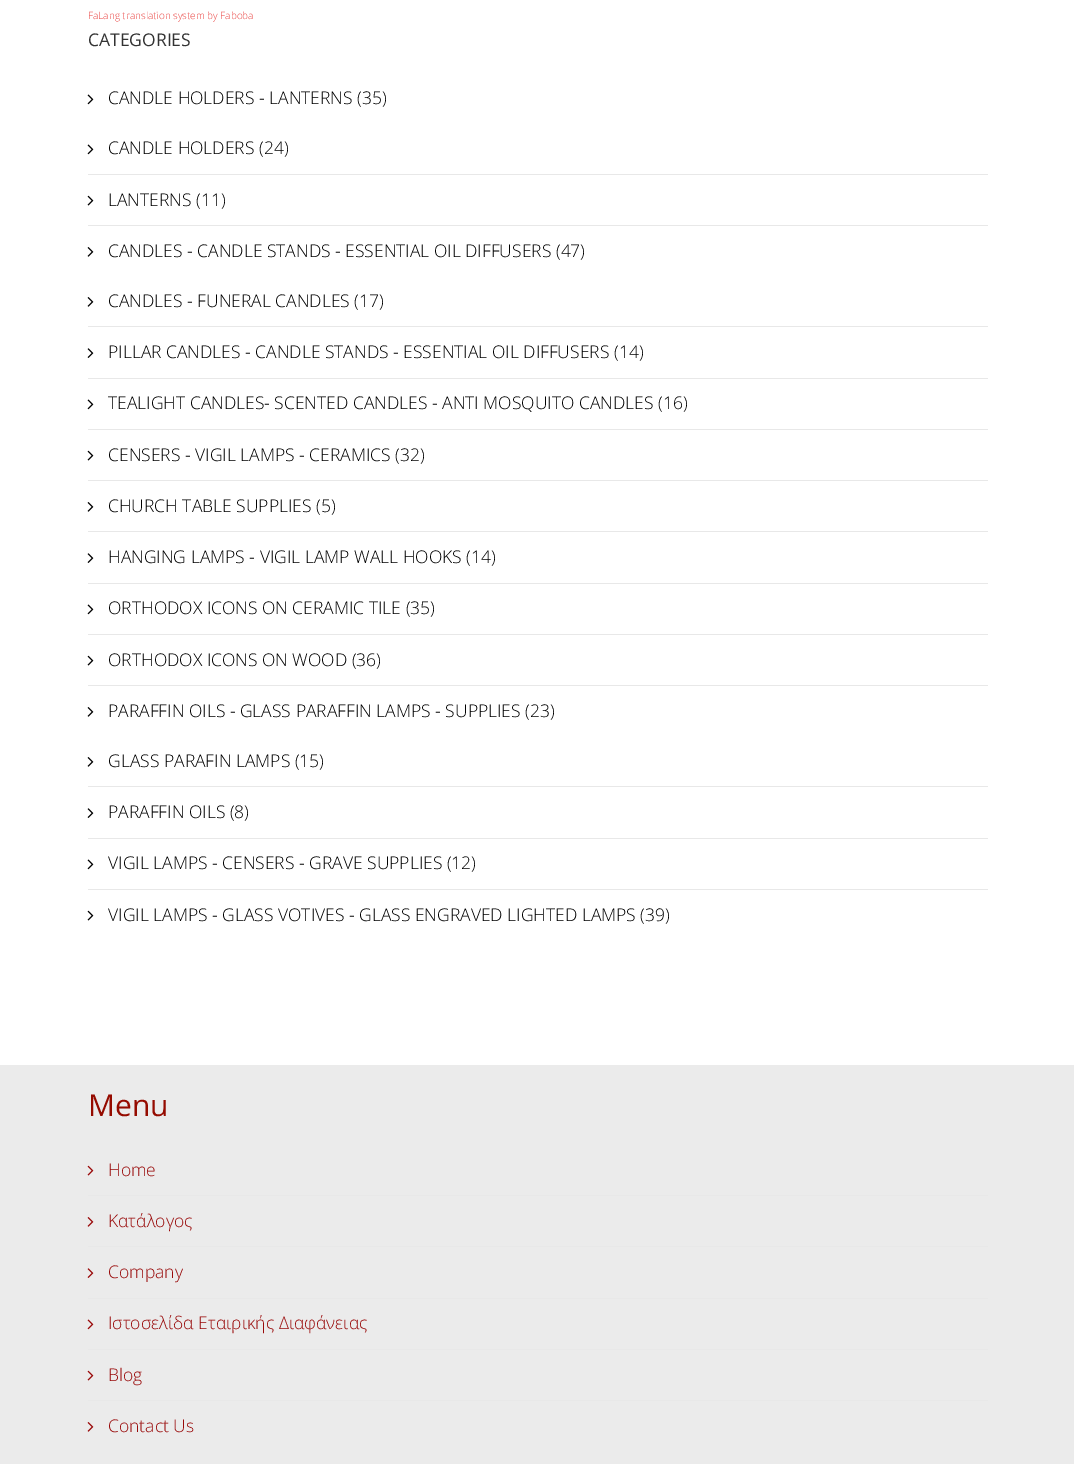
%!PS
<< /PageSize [1074 1464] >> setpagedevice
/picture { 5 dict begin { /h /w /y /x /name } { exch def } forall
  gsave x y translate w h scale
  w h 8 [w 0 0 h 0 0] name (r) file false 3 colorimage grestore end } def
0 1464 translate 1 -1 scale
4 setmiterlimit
1 setgray
0 0 1074 1464 rectfill
/OpenSans-Light [10 0 0 -10 0 0] selectfont
0.922 0.286 0.278 setrgbcolor
88 19 moveto (FaLang translation system by Faboba) show
/OpenSans-Regular [17.5 0 0 -17.5 0 0] selectfont
0.2 setgray
88 46 moveto (CATEGORIES) show
0.91 setgray
88 225 900 1 rectfill
(img1.rgb) 87 94 7 11 picture
/OpenSans-Light [17.5 0 0 -17.5 0 0] selectfont
0 setgray
108 104 moveto (CANDLE HOLDERS - LANTERNS \(35\)) show
0.91 setgray
88 174 900 1 rectfill
(img1.rgb) 87 144 7 11 picture
0 setgray
108 154 moveto (CANDLE HOLDERS \(24\)) show
(img2.rgb) 87 195 7 11 picture
108 206 moveto (LANTERNS \(11\)) show
0.91 setgray
88 429 900 1 rectfill
(img3.rgb) 87 247 7 10 picture
0 setgray
108 257 moveto (CANDLES - CANDLE STANDS - ESSENTIAL OIL DIFFUSERS \(47\)) show
0.91 setgray
88 326 900 1 rectfill
(img3.rgb) 87 297 7 10 picture
0 setgray
108 307 moveto (CANDLES - FUNERAL CANDLES \(17\)) show
0.91 setgray
88 378 900 1 rectfill
(img4.rgb) 87 348 7 10 picture
0 setgray
108 358 moveto (PILLAR CANDLES - CANDLE STANDS - ESSENTIAL OIL DIFFUSERS \(14\)) show
(img1.rgb) 87 399 7 11 picture
108 409 moveto (TEALIGHT CANDLES- SCENTED CANDLES - ANTI MOSQUITO CANDLES \(16\)) show
0.91 setgray
88 480 900 1 rectfill
(img2.rgb) 87 450 7 11 picture
0 setgray
108 461 moveto (CENSERS - VIGIL LAMPS - CERAMICS \(32\)) show
0.91 setgray
88 531 900 1 rectfill
(img3.rgb) 87 502 7 10 picture
0 setgray
108 512 moveto (CHURCH TABLE SUPPLIES \(5\)) show
0.91 setgray
88 583 900 1 rectfill
(img4.rgb) 87 553 7 10 picture
0 setgray
108 563 moveto (HANGING LAMPS - VIGIL LAMP WALL HOOKS \(14\)) show
0.91 setgray
88 634 900 1 rectfill
(img1.rgb) 87 604 7 11 picture
0 setgray
108 614 moveto (ORTHODOX ICONS ON CERAMIC TILE \(35\)) show
0.91 setgray
88 685 900 1 rectfill
(img2.rgb) 87 655 7 11 picture
0 setgray
108 666 moveto (ORTHODOX ICONS ON WOOD \(36\)) show
0.91 setgray
88 838 900 1 rectfill
(img3.rgb) 87 707 7 10 picture
0 setgray
108 717 moveto (PARAFFIN OILS - GLASS PARAFFIN LAMPS - SUPPLIES \(23\)) show
0.91 setgray
88 786 900 1 rectfill
(img3.rgb) 87 757 7 10 picture
0 setgray
108 767 moveto (GLASS PARAFIN LAMPS \(15\)) show
(img4.rgb) 87 808 7 10 picture
108 818 moveto (PARAFFIN OILS \(8\)) show
0.91 setgray
88 889 900 1 rectfill
(img1.rgb) 87 859 7 11 picture
0 setgray
108 869 moveto (VIGIL LAMPS - CENSERS - GRAVE SUPPLIES \(12\)) show
(img2.rgb) 87 910 7 11 picture
108 921 moveto (VIGIL LAMPS - GLASS VOTIVES - GLASS ENGRAVED LIGHTED LAMPS \(39\)) show
0.922 setgray
0 1065 1074 399 rectfill
/OpenSans-Regular [30 0 0 -30 0 0] selectfont
0.584 0.043 0 setrgbcolor
88 1116 moveto (Menu) show
0.91 setgray
88 1195 900 1 rectfill
(img5.rgb) 87 1165 7 11 picture
/OpenSans-Light [17.5 0 0 -17.5 0 0] selectfont
0.6 0.035 0.035 setrgbcolor
108 1176 moveto (Home) show
0.91 setgray
88 1246 900 1 rectfill
(img6.rgb) 87 1217 7 10 picture
0.6 0.035 0.035 setrgbcolor
108 1227 moveto (Κατάλογος) show
0.91 setgray
88 1298 900 1 rectfill
(img7.rgb) 87 1268 7 10 picture
0.6 0.035 0.035 setrgbcolor
108 1278 moveto (Company) show
0.91 setgray
88 1349 900 1 rectfill
(img8.rgb) 87 1319 7 11 picture
0.6 0.035 0.035 setrgbcolor
108 1329 moveto (Ιστοσελίδα Εταιρικής Διαφάνειας) show
0.91 setgray
88 1400 900 1 rectfill
(img5.rgb) 87 1370 7 11 picture
0.6 0.035 0.035 setrgbcolor
108 1381 moveto (Blog) show
(img6.rgb) 87 1422 7 10 picture
108 1432 moveto (Contact Us) show
showpage
